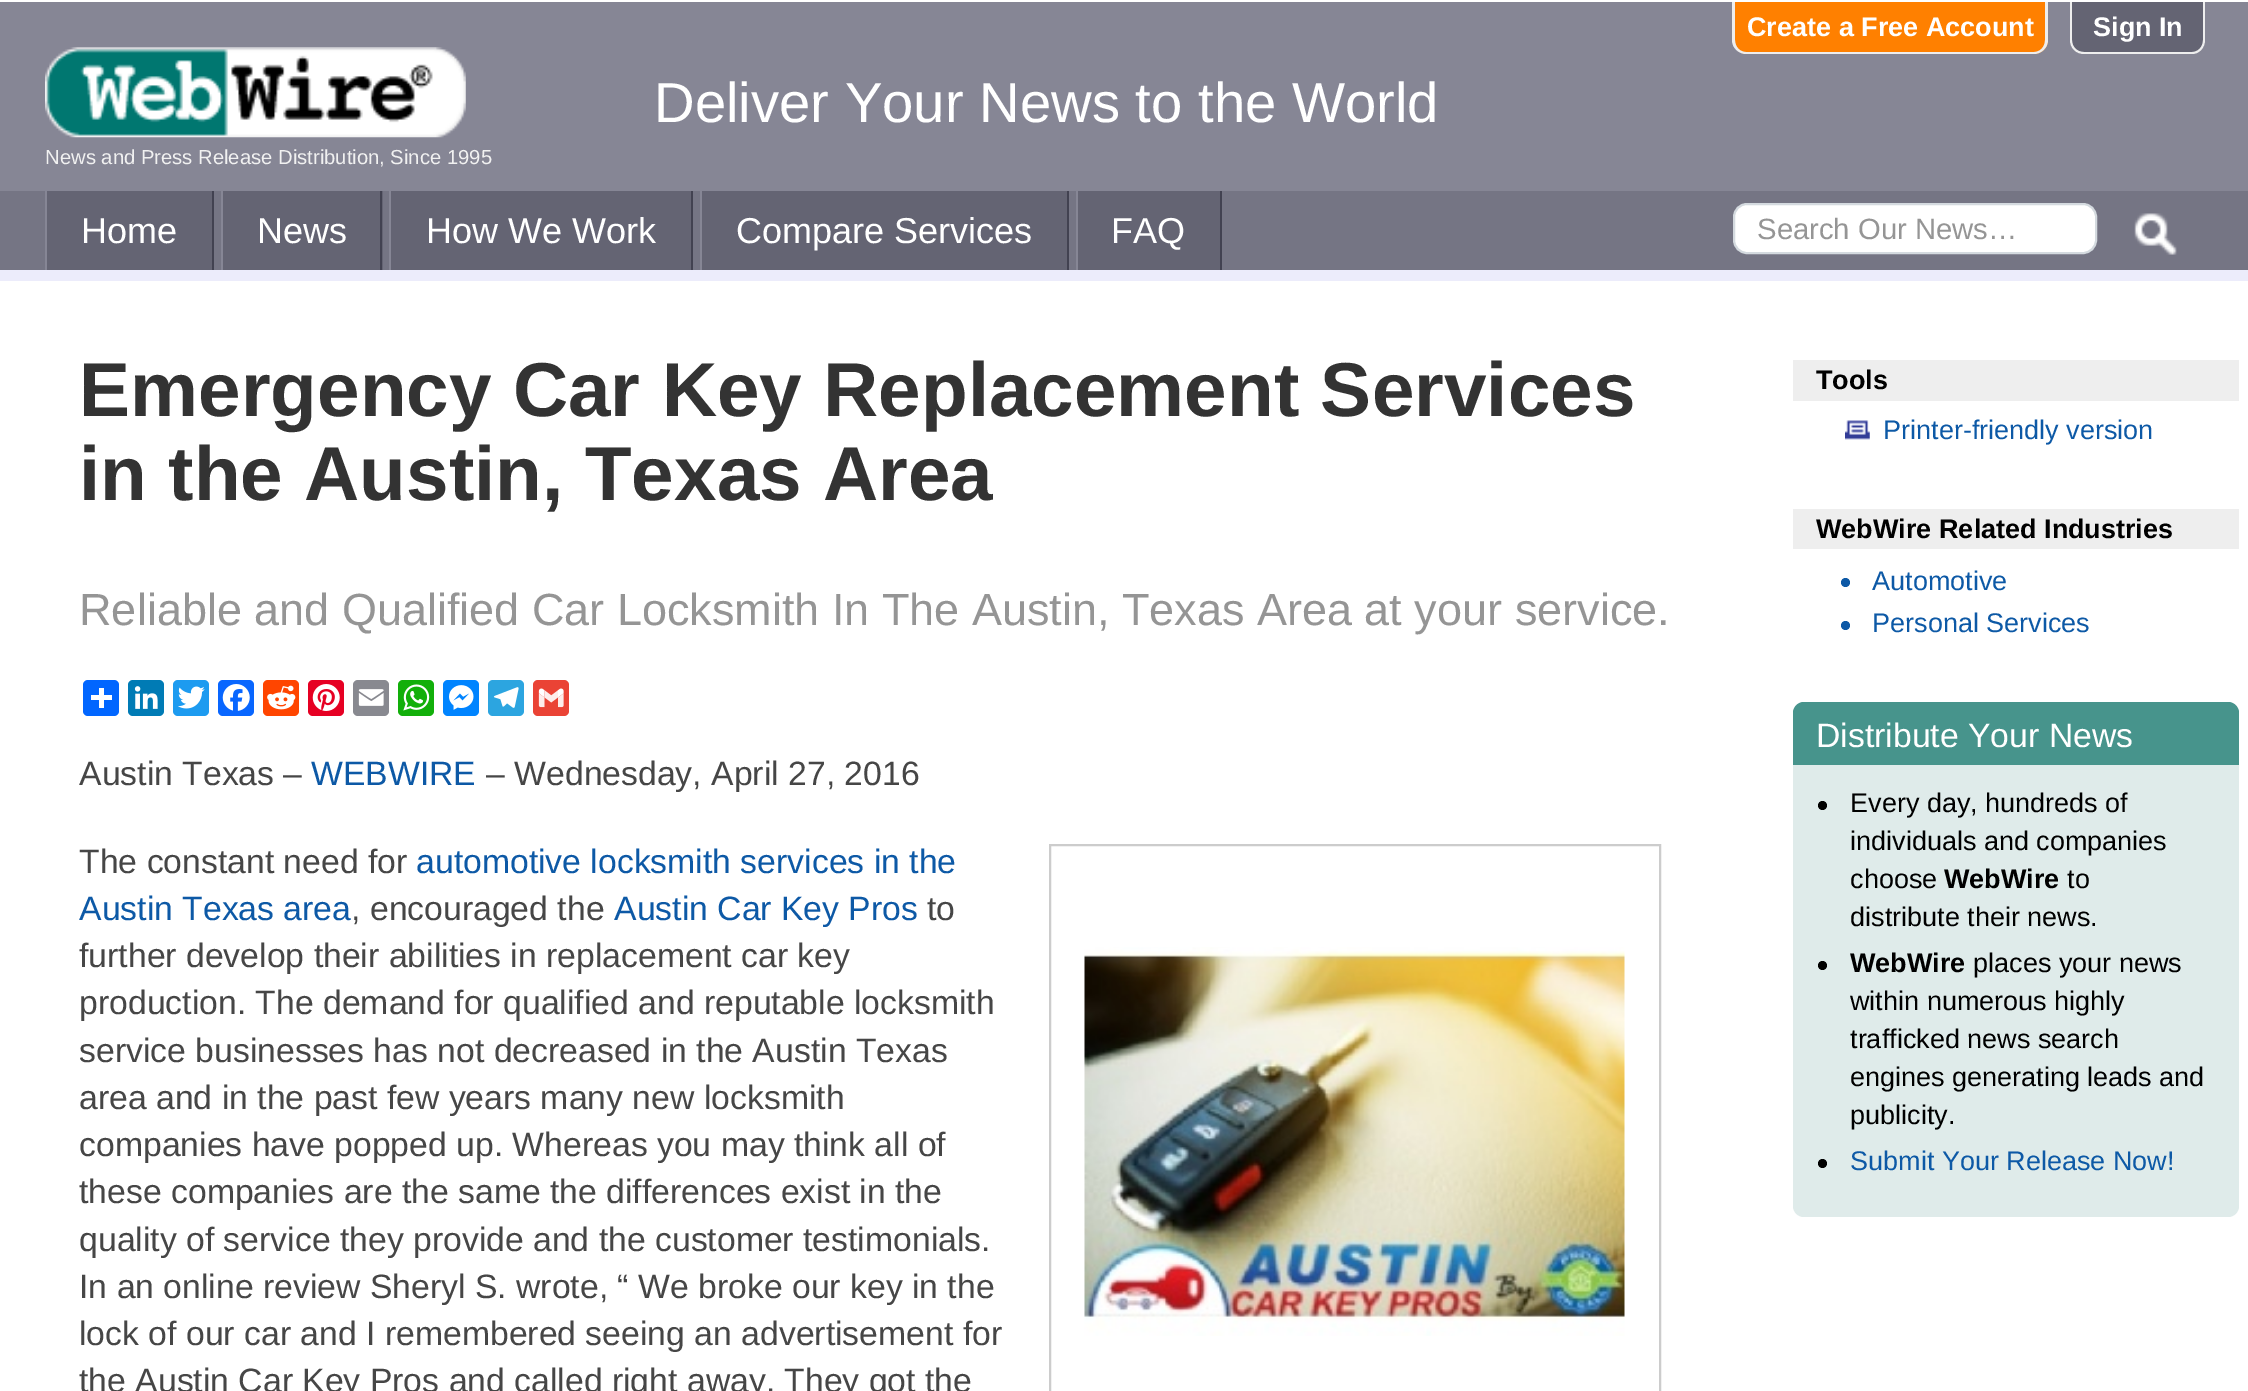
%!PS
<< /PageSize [2248 1391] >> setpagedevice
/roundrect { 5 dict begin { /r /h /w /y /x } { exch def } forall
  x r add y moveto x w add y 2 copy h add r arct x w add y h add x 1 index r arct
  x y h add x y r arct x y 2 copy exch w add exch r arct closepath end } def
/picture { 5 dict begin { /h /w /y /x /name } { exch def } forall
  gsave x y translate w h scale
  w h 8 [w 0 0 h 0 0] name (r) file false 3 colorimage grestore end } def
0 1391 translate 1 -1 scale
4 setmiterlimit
1 setgray
0 0 2248 1391 rectfill
0.525 0.525 0.584 setrgbcolor
0 2 2248 189 rectfill
1 0.502 0 setrgbcolor
newpath 1733 2 moveto 2048 2 lineto 2048 40 lineto 2048 47.5 2041.5 54 2034 54 curveto 1747 54 lineto 1739.5 54 1733 47.5 1733 40 curveto closepath fill
0.933 setgray
newpath 1732 2 moveto 2048 2 lineto 2048 40 lineto 2048 48 2041 54 2034 54 curveto 1746 54 lineto 1739 54 1732 48 1732 40 curveto closepath 1735 2 moveto 2045 2 lineto 2045 40 lineto 2045 47 2040 52 2034 52 curveto 1746 52 lineto 1740 52 1735 47 1735 40 curveto closepath eofill
/LiberationSans-Bold [27 0 0 -27 0 0] selectfont
1 setgray
1747 36 moveto (Create a Free Account) show
0.392 0.392 0.451 setrgbcolor
newpath 2070 2 moveto 2205 2 lineto 2205 40 lineto 2205 47.5 2198.5 54 2191 54 curveto 2084 54 lineto 2076.5 54 2070 47.5 2070 40 curveto closepath fill
0.933 setgray
newpath 2070 2 moveto 2205 2 lineto 2205 40 lineto 2205 48 2199 54 2192 54 curveto 2084 54 lineto 2076 54 2070 48 2070 40 curveto closepath 2072 2 moveto 2203 2 lineto 2203 40 lineto 2203 47 2198 52 2192 52 curveto 2084 52 lineto 2077 52 2072 47 2072 40 curveto closepath eofill
1 setgray
2093 36 moveto (Sign In) show
/LiberationSans-Regular [56.25 0 0 -56.25 0 0] selectfont
654 122 moveto (Deliver Your News to the World) show
(img1.rgb) 45 47 421 91 picture
/LiberationSans-Regular [20.25 0 0 -20.25 0 0] selectfont
0.945 setgray
45 164 moveto (News and Press Release Distribution, Since 1995) show
0.459 0.459 0.518 setrgbcolor
0 191 2248 79 rectfill
0.925 0.925 0.984 setrgbcolor
0 270 2248 11 rectfill
0.392 0.392 0.451 setrgbcolor
47 191 165 79 rectfill
0.259 0.259 0.318 setrgbcolor
212 191 2 79 rectfill
0.525 0.525 0.584 setrgbcolor
45 191 2 79 rectfill
/LiberationSans-Regular [36 0 0 -36 0 0] selectfont
1 setgray
81 243 moveto (Home) show
0.392 0.392 0.451 setrgbcolor
223 191 160 79 rectfill
0.259 0.259 0.318 setrgbcolor
380 191 2 79 rectfill
0.525 0.525 0.584 setrgbcolor
221 191 2 79 rectfill
1 setgray
257 243 moveto (News) show
0.392 0.392 0.451 setrgbcolor
391 191 300 79 rectfill
0.259 0.259 0.318 setrgbcolor
691 191 2 79 rectfill
0.525 0.525 0.584 setrgbcolor
389 191 2 79 rectfill
1 setgray
426 243 moveto (How We Work) show
0.392 0.392 0.451 setrgbcolor
702 191 365 79 rectfill
0.259 0.259 0.318 setrgbcolor
1067 191 2 79 rectfill
0.525 0.525 0.584 setrgbcolor
700 191 2 79 rectfill
1 setgray
736 243 moveto (Compare Services) show
0.392 0.392 0.451 setrgbcolor
1078 191 142 79 rectfill
0.259 0.259 0.318 setrgbcolor
1220 191 2 79 rectfill
0.525 0.525 0.584 setrgbcolor
1076 191 2 79 rectfill
1 setgray
1111 243 moveto (FAQ) show
1734 204 362 49 13 roundrect gsave fill grestore
0.831 0.855 0.875 setrgbcolor
2 setlinewidth
stroke
/LiberationSans-Regular [29.25 0 0 -29.25 0 0] selectfont
0.584 setgray
1757 239 moveto (Search Our News…) show
(img2.rgb) 2134 213 43 42 picture
/LiberationSans-Bold [76.5 0 0 -76.5 0 0] selectfont
0.2 setgray
79 416 moveto (Emergency Car Key Replacement Services) show
79 500 moveto (in the Austin, Texas Area) show
/LiberationSans-Regular [45 0 0 -45 0 0] selectfont
0.584 setgray
79 625 moveto (Reliable and Qualified Car Locksmith In The Austin, Texas Area at your service.) show
0.004 0.4 1 setrgbcolor
83 680 36 36 5 roundrect fill
1 setgray
99 688 5 20 rectfill
91 695 21 5 rectfill
0 0.482 0.71 setrgbcolor
128 680 36 36 5 roundrect fill
(img3.rgb) 134 686 24 23 picture
0.114 0.608 0.941 setrgbcolor
173 680 36 36 5 roundrect fill
(img4.rgb) 178 686 27 23 picture
0.031 0.4 1 setrgbcolor
218 680 36 36 5 roundrect fill
(img5.rgb) 222 684 28 27 picture
1 0.271 0 setrgbcolor
263 680 36 36 5 roundrect fill
(img6.rgb) 267 685 29 25 picture
0.902 0 0.137 setrgbcolor
308 680 36 36 5 roundrect fill
(img7.rgb) 312 684 28 27 picture
0.533 0.537 0.565 setrgbcolor
353 680 36 36 5 roundrect fill
(img8.rgb) 358 689 26 17 picture
0.071 0.686 0.039 setrgbcolor
398 680 36 36 5 roundrect fill
(img9.rgb) 403 684 27 27 picture
0 0.518 1 setrgbcolor
443 680 36 36 5 roundrect fill
(img10.rgb) 449 685 25 25 picture
0.173 0.647 0.878 setrgbcolor
488 680 36 36 5 roundrect fill
(img11.rgb) 493 687 26 21 picture
0.918 0.263 0.208 setrgbcolor
533 680 36 36 5 roundrect fill
(img12.rgb) 538 688 26 20 picture
/LiberationSans-Regular [33.75 0 0 -33.75 0 0] selectfont
0.275 setgray
79 785 moveto (Austin Texas –) show
0.051 0.349 0.651 setrgbcolor
311 785 moveto (WEBWIRE) show
0.275 setgray
486 785 moveto (– Wednesday, April 27, 2016) show
79 873 moveto (The constant need for) show
0.051 0.349 0.651 setrgbcolor
416 873 moveto (automotive locksmith services in the) show
79 920 moveto (Austin Texas area) show
0.275 setgray
351 920 moveto (, encouraged the) show
0.051 0.349 0.651 setrgbcolor
614 920 moveto (Austin Car Key Pros) show
0.275 setgray
927 920 moveto (to) show
79 967 moveto (further develop their abilities in replacement car key) show
79 1014 moveto (production. The demand for qualified and reputable locksmith) show
79 1062 moveto (service businesses has not decreased in the Austin Texas) show
79 1109 moveto (area and in the past few years many new locksmith) show
79 1156 moveto (companies have popped up. Whereas you may think all of) show
79 1203 moveto (these companies are the same the differences exist in the) show
79 1251 moveto (quality of service they provide and the customer testimonials.) show
79 1298 moveto (In an online review Sheryl S. wrote, “ We broke our key in the) show
79 1345 moveto (lock of our car and I remembered seeing an advertisement for) show
79 1392 moveto (the Austin Car Key Pros and called right away. They got the) show
0.8 setgray
1050 845 610 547 rectstroke
(img13.rgb) 1084 947 541 389 picture
0.933 setgray
1793 360 446 41 rectfill
/LiberationSans-Bold [27 0 0 -27 0 0] selectfont
0 setgray
1816 389 moveto (Tools) show
(img14.rgb) 1845 420 25 20 picture
/LiberationSans-Regular [27 0 0 -27 0 0] selectfont
0.051 0.349 0.651 setrgbcolor
1883 439 moveto (Printer-friendly version) show
0.933 setgray
1793 509 446 40 rectfill
/LiberationSans-Bold [27 0 0 -27 0 0] selectfont
0 setgray
1816 538 moveto (WebWire Related Industries) show
0.051 0.349 0.651 setrgbcolor
newpath 1845.5 582.5 4.5 0 360 arc closepath fill
/LiberationSans-Regular [27 0 0 -27 0 0] selectfont
1872 590 moveto (Automotive) show
newpath 1845.5 625.5 4.5 0 360 arc closepath fill
1872 632 moveto (Personal Services) show
0.875 0.922 0.918 setrgbcolor
1793 702 446 515 11 roundrect fill
0.278 0.58 0.549 setrgbcolor
newpath 1804 702 moveto 2228 702 lineto 2234 702 2239 707 2239 713 curveto 2239 765 lineto 1793 765 lineto 1793 713 lineto 1793 707 1798 702 1804 702 curveto closepath fill
/LiberationSans-Regular [33.75 0 0 -33.75 0 0] selectfont
1 setgray
1816 747 moveto (Distribute Your News) show
0 setgray
newpath 1822.5 805.5 4.5 0 360 arc closepath fill
/LiberationSans-Regular [27 0 0 -27 0 0] selectfont
1850 812 moveto (Every day, hundreds of) show
1850 850 moveto (individuals and companies) show
1850 888 moveto (choose) show
/LiberationSans-Bold [27 0 0 -27 0 0] selectfont
1944 888 moveto (WebWire) show
/LiberationSans-Regular [27 0 0 -27 0 0] selectfont
2067 888 moveto (to) show
1850 926 moveto (distribute their news.) show
newpath 1822.5 965.5 4.5 0 360 arc closepath fill
/LiberationSans-Bold [27 0 0 -27 0 0] selectfont
1850 972 moveto (WebWire) show
/LiberationSans-Regular [27 0 0 -27 0 0] selectfont
1973 972 moveto (places your news) show
1850 1010 moveto (within numerous highly) show
1850 1048 moveto (trafficked news search) show
1850 1086 moveto (engines generating leads and) show
1850 1124 moveto (publicity.) show
newpath 1822.5 1163.5 4.5 0 360 arc closepath fill
0.051 0.349 0.651 setrgbcolor
1850 1170 moveto (Submit Your Release Now!) show
showpage
